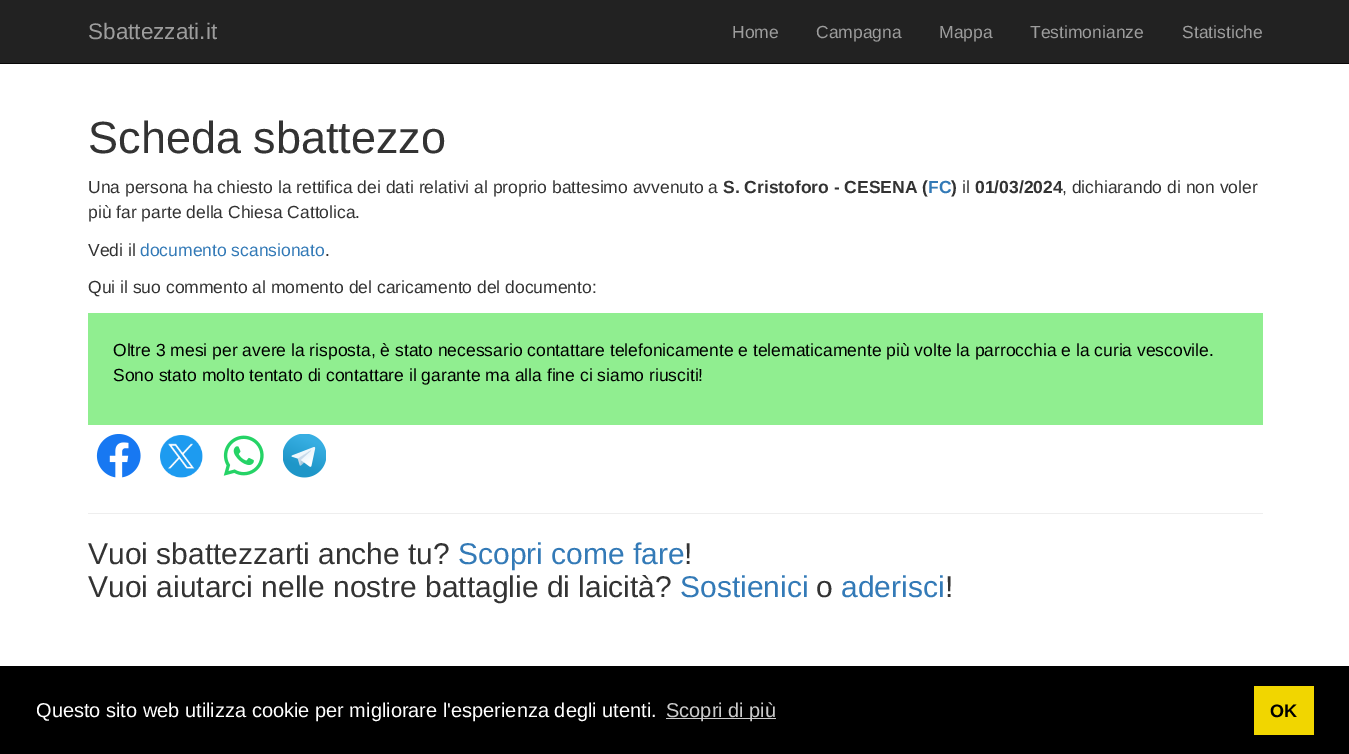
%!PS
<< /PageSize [1349 754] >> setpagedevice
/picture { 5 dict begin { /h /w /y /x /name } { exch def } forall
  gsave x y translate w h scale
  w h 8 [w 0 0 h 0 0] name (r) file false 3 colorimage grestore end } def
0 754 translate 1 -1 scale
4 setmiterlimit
1 setgray
0 0 1349 754 rectfill
0.133 setgray
0 0 1349 63 rectfill
0.031 setgray
0 63 1349 1 rectfill
/LiberationSans-Regular [22.5 0 0 -22.5 0 0] selectfont
0.616 setgray
88 39 moveto (Sbattezzati.it) show
/LiberationSans-Regular [17.5 0 0 -17.5 0 0] selectfont
732 38 moveto (Home) show
816 38 moveto (Campagna) show
939 38 moveto (Mappa) show
1030 38 moveto (Testimonianze) show
1182 38 moveto (Statistiche) show
/LiberationSans-Regular [45 0 0 -45 0 0] selectfont
0.2 setgray
88 153 moveto (Scheda sbattezzo) show
/LiberationSans-Regular [17.5 0 0 -17.5 0 0] selectfont
88 193 moveto (Una persona ha chiesto la rettifica dei dati relativi al proprio battesimo avvenuto a) show
/LiberationSans-Bold [17.5 0 0 -17.5 0 0] selectfont
723 193 moveto (S. Cristoforo - CESENA \() show
0.2 0.478 0.718 setrgbcolor
928 193 moveto (FC) show
0.2 setgray
951 193 moveto (\)) show
/LiberationSans-Regular [17.5 0 0 -17.5 0 0] selectfont
962 193 moveto (il) show
/LiberationSans-Bold [17.5 0 0 -17.5 0 0] selectfont
975 193 moveto (01/03/2024) show
/LiberationSans-Regular [17.5 0 0 -17.5 0 0] selectfont
1062 193 moveto (, dichiarando di non voler) show
88 218 moveto (più far parte della Chiesa Cattolica.) show
88 256 moveto (Vedi il) show
0.2 0.478 0.718 setrgbcolor
140 256 moveto (documento scansionato) show
0.2 setgray
325 256 moveto (.) show
88 293 moveto (Qui il suo commento al momento del caricamento del documento:) show
0.565 0.933 0.565 setrgbcolor
88 313 1175 112 rectfill
0 setgray
113 356 moveto (Oltre 3 mesi per avere la risposta, è stato necessario contattare telefonicamente e telematicamente più volte la parrocchia e la curia vescovile.) show
113 381 moveto (Sono stato molto tentato di contattare il garante ma alla fine ci siamo riusciti!) show
(img1.rgb) 96 434 45 44 picture
(img2.rgb) 160 435 43 43 picture
(img3.rgb) 223 435 41 41 picture
(img4.rgb) 283 434 43 44 picture
0.933 setgray
88 513 1175 1 rectfill
/LiberationSans-Regular [30 0 0 -30 0 0] selectfont
0.2 setgray
88 564 moveto (Vuoi sbattezzarti anche tu?) show
0.2 0.478 0.718 setrgbcolor
458 564 moveto (Scopri come fare) show
0.2 setgray
684 564 moveto (!) show
88 597 moveto (Vuoi aiutarci nelle nostre battaglie di laicità?) show
0.2 0.478 0.718 setrgbcolor
680 597 moveto (Sostienici) show
0.2 setgray
816 597 moveto (o) show
0.2 0.478 0.718 setrgbcolor
841 597 moveto (aderisci) show
0.2 setgray
945 597 moveto (!) show
0 setgray
0 666 1349 88 rectfill
/LiberationSans-Regular [20 0 0 -20 0 0] selectfont
1 setgray
36 717 moveto (Questo sito web utilizza cookie per migliorare l'esperienza degli utenti.) show
0.8 setgray
666 718 110 1 rectfill
666 717 moveto (Scopri di più) show
0.945 0.839 0 setrgbcolor
1254 686 60 49 rectfill
/LiberationSans-Bold [18 0 0 -18 0 0] selectfont
0 setgray
1270 717 moveto (OK) show
showpage
